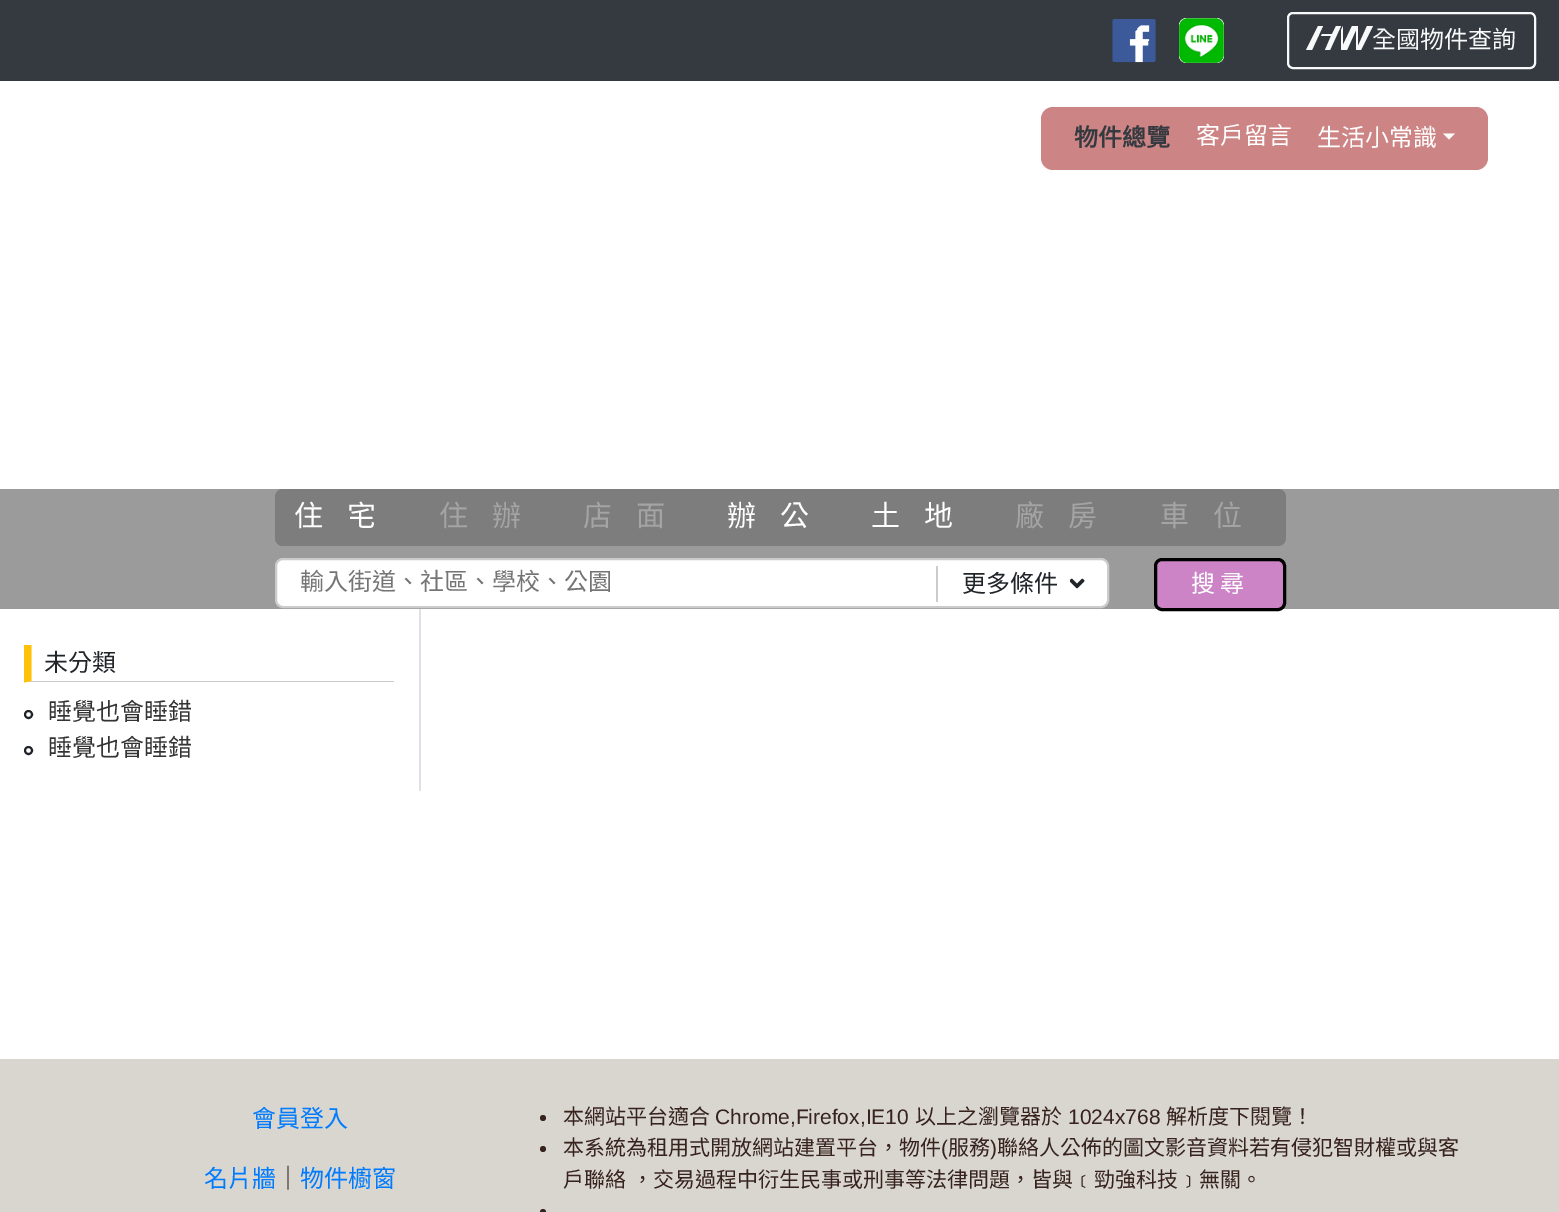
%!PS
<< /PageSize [1559 1212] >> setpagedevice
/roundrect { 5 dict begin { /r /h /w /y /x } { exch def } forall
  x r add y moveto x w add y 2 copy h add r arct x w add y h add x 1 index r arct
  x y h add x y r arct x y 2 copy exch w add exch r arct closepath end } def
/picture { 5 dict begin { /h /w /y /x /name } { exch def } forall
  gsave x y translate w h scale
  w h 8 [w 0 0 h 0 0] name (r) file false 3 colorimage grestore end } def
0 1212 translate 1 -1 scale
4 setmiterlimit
1 setgray
0 0 1559 1212 rectfill
0.204 0.227 0.251 setrgbcolor
0 0 1559 81 rectfill
(img1.rgb) 1112 19 44 44 picture
(img2.rgb) 1179 18 45 45 picture
0.973 0.976 0.98 setrgbcolor
2 setlinewidth
1288 13 247 55 5 roundrect stroke
newpath 1367 26 moveto 1358 46 lineto 1358 26 lineto 1352 26 lineto 1343 45 lineto 1343 26 lineto 1341 30 lineto 1341 50 lineto 1347 50 lineto 1356 30 lineto 1356 50 lineto 1361 50 lineto 1373 26 lineto closepath 1336 26 moveto 1332 34 lineto 1322 34 lineto 1321 36 lineto 1331 36 lineto 1325 50 lineto 1330 50 lineto 1341 26 lineto closepath 1318 26 moveto 1306 50 lineto 1312 50 lineto 1323 26 lineto closepath fill
/NotoSansCJKTC-Regular [24 0 0 -24 0 0] selectfont
1372 48 moveto (全國物件查詢) show
0.8 0.518 0.518 setrgbcolor
newpath 1053 107 moveto 1184 107 lineto 1184 170 lineto 1053 170 lineto 1046.5 170 1041 164.5 1041 158 curveto 1041 119 lineto 1041 112.5 1046.5 107 1053 107 curveto closepath fill
/NotoSansCJKTC-Bold [24 0 0 -24 0 0] selectfont
0.204 0.227 0.251 setrgbcolor
1074 146 moveto (物件總覽) show
0.8 0.518 0.518 setrgbcolor
1184 107 120 63 rectfill
/NotoSansCJKTC-Regular [24 0 0 -24 0 0] selectfont
1 setgray
1196 144 moveto (客戶留言) show
0.8 0.518 0.518 setrgbcolor
newpath 1304 107 moveto 1476 107 lineto 1482.5 107 1488 112.5 1488 119 curveto 1488 158 lineto 1488 164.5 1482.5 170 1476 170 curveto 1304 170 lineto closepath fill
1 setgray
1317 146 moveto (生活小常識) show
newpath 1443 133.5 moveto 1455 133.5 lineto 1449 139.5 lineto closepath fill
0.608 setgray
0 489 1559 120 rectfill
0.49 setgray
275 489 1011 57 8 roundrect fill
/NotoSansCJKTC-Regular [29 0 0 -29 0 0] selectfont
1 setgray
294 526 moveto 24 0 (住宅) ashow
0.643 setgray
439 526 moveto 24 0 (住辦) ashow
583 526 moveto 24 0 (店面) ashow
1 setgray
727 526 moveto 24 0 (辦公) ashow
871 526 moveto 24 0 (土地) ashow
0.643 setgray
1015 526 moveto 24 0 (廠房) ashow
1160 526 moveto 24 0 (車位) ashow
1 setgray
276 559 832 48 7 roundrect gsave fill grestore
0.8 setgray
stroke
/NotoSansCJKTC-Regular [24 0 0 -24 0 0] selectfont
0.459 setgray
300 590 moveto (輸入街道、社區、學校、公園) show
0.8 setgray
936 566 2 36 rectfill
0.129 0.145 0.161 setrgbcolor
962 592 moveto (更多條件) show
(img3.rgb) 1070 578 15 11 picture
0.8 0.518 0.78 setrgbcolor
1155.5 559.5 129 50 6.5 roundrect gsave fill grestore
0 setgray
3 setlinewidth
stroke
1 setgray
1191 592 moveto 5 0 (搜尋) ashow
0.871 0.886 0.902 setrgbcolor
419 609 2 182 rectfill
0.8 setgray
newpath 394 682 moveto 24 682 lineto 32 681 lineto 394 681 lineto closepath fill
1 0.757 0.027 setrgbcolor
newpath 24 682.5 moveto 24 645 lineto 31.5 645 lineto 31.5 681 lineto closepath fill
0.129 0.145 0.161 setrgbcolor
44 671 moveto (未分類) show
2 setlinewidth
newpath 28.5 714.5 3.5 0 360 arc closepath stroke
0.2 setgray
48 720 moveto (睡覺也會睡錯) show
0.129 0.145 0.161 setrgbcolor
newpath 28.5 750.5 3.5 0 360 arc closepath stroke
0.2 setgray
48 756 moveto (睡覺也會睡錯) show
0.847 0.839 0.812 setrgbcolor
0 1059 1559 153 rectfill
0 0.482 1 setrgbcolor
252 1127 moveto (會員登入) show
204 1187 moveto (名片牆) show
0.216 0.133 0.114 setrgbcolor
276 1187 moveto (｜) show
0 0.482 1 setrgbcolor
300 1187 moveto (物件櫥窗) show
0.216 0.133 0.114 setrgbcolor
newpath 543 1118 3 0 360 arc closepath fill
/NotoSansCJKTC-Regular [21 0 0 -21 0 0] selectfont
563 1124 moveto (本網站平台適合) show
/LiberationSans-Regular [21 0 0 -21 0 0] selectfont
715 1124 moveto (Chrome,Firefox,IE10) show
/NotoSansCJKTC-Regular [21 0 0 -21 0 0] selectfont
915 1124 moveto (以上之瀏覽器於) show
/LiberationSans-Regular [21 0 0 -21 0 0] selectfont
1068 1124 moveto (1024x768) show
/NotoSansCJKTC-Regular [21 0 0 -21 0 0] selectfont
1166 1124 moveto (解析度下閱覽！) show
newpath 543 1149 3 0 360 arc closepath fill
563 1155 moveto (本系統為租用式開放網站建置平台，物件) show
/LiberationSans-Regular [21 0 0 -21 0 0] selectfont
941 1155 moveto (\() show
/NotoSansCJKTC-Regular [21 0 0 -21 0 0] selectfont
948 1155 moveto (服務) show
/LiberationSans-Regular [21 0 0 -21 0 0] selectfont
990 1155 moveto (\)) show
/NotoSansCJKTC-Regular [21 0 0 -21 0 0] selectfont
997 1155 moveto (聯絡人公佈的圖文影音資料若有侵犯智財權或與客) show
563 1187 moveto 1 0 32 (戶聯絡 ，交易過程中衍生民事或刑事等法律問題，皆與﹝勁強科技﹞無關。) widthshow
newpath 543 1212 3 0 360 arc closepath fill
showpage
